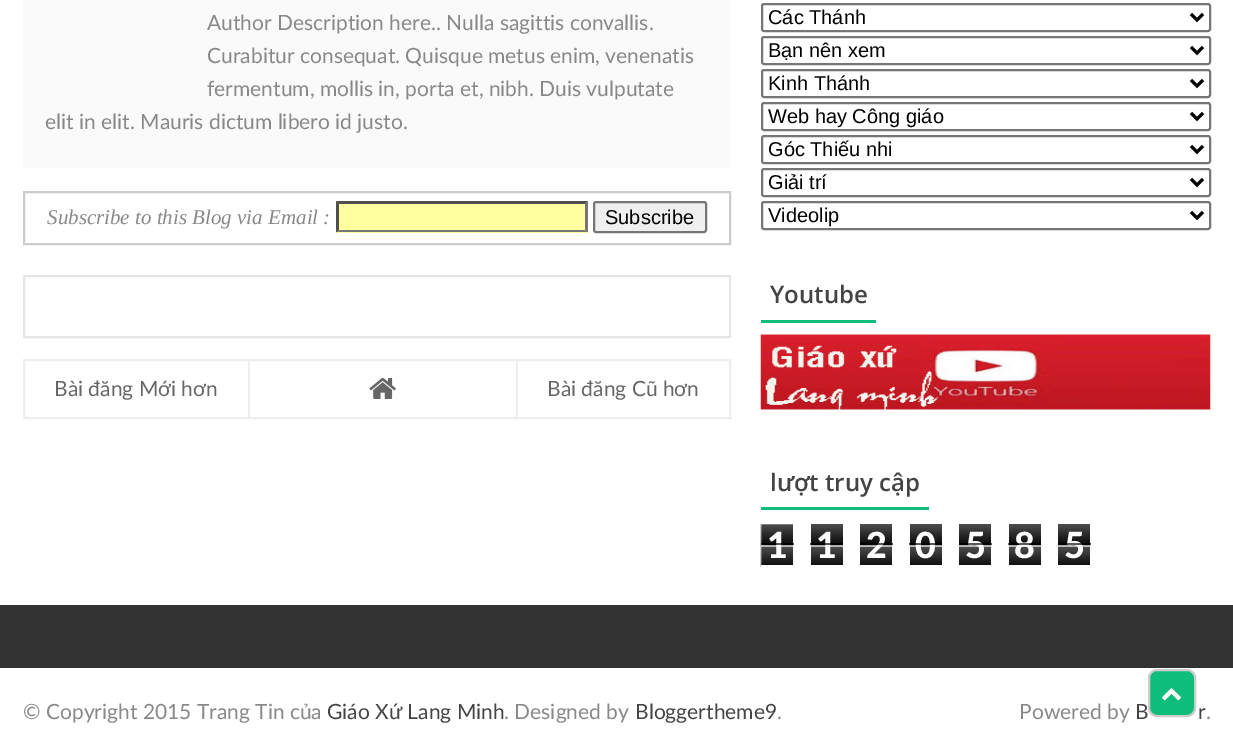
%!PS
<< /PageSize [1233 754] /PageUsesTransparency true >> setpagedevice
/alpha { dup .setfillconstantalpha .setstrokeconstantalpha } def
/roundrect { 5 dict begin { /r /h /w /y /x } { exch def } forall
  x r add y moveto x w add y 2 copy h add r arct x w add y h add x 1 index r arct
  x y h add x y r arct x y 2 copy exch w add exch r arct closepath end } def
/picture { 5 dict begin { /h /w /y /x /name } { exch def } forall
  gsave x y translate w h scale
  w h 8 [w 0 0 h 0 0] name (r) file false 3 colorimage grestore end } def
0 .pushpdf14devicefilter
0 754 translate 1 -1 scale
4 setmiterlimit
1 setgray
0 0 1233 754 rectfill
0.98 setgray
23 0 708 168 rectfill
/Lato-Regular [21 0 0 -21 0 0] selectfont
0.533 setgray
207 30 moveto (Author Description here.. Nulla sagittis convallis.) show
207 63 moveto (Curabitur consequat. Quisque metus enim, venenatis) show
207 96 moveto (fermentum, mollis in, porta et, nibh. Duis vulputate) show
45 129 moveto (elit in elit. Mauris dictum libero id justo.) show
0.8 setgray
2 setlinewidth
24 192 706 52 rectstroke
/LiberationSerif-Italic [21 0 0 -21 0 0] selectfont
0.533 setgray
47 224 moveto (Subscribe to this Blog via Email :) show
1 1 0.627 setrgbcolor
336 201 252 32 rectfill
0.31 setgray
newpath 336 201 moveto 588 201 lineto 585 204 lineto 339 204 lineto closepath fill
0.463 setgray
newpath 588 201 moveto 588 232.5 lineto 585 229.5 lineto 585 204 lineto closepath fill
newpath 588 232 moveto 336 232 lineto 339 230 lineto 585 230 lineto closepath fill
0.31 setgray
newpath 336 232.5 moveto 336 201 lineto 339 204 lineto 339 229.5 lineto closepath fill
0.937 setgray
594 202 112 30 2 roundrect gsave fill grestore
0.463 setgray
stroke
/LiberationSans-Regular [20 0 0 -20 0 0] selectfont
0 setgray
605 224 moveto (Subscribe) show
0.902 setgray
24 276 706 61 rectstroke
0.933 setgray
24 360 706 58 rectstroke
248 360 2 57 rectfill
/Lato-Regular [21 0 0 -21 0 0] selectfont
0.4 setgray
54 396 moveto (Bài đăng Mới hơn) show
(img1.rgb) 369 378 27 21 picture
0.933 setgray
516 360 2 57 rectfill
0.4 setgray
547 396 moveto (Bài đăng Cũ hơn) show
0.463 setgray
762 4 448 27 2 roundrect stroke
0 setgray
3 setlinewidth
newpath 1191 14 moveto 1197 20 lineto 1203 14 lineto stroke
/LiberationSans-Regular [20 0 0 -20 0 0] selectfont
768 24 moveto (Các Thánh) show
0.463 setgray
2 setlinewidth
762 37 448 27 2 roundrect stroke
0 setgray
3 setlinewidth
newpath 1191 47 moveto 1197 53 lineto 1203 47 lineto stroke
768 57 moveto (Bạn nên xem) show
0.463 setgray
2 setlinewidth
762 70 448 27 2 roundrect stroke
0 setgray
3 setlinewidth
newpath 1191 80 moveto 1197 86 lineto 1203 80 lineto stroke
768 90 moveto (Kinh Thánh) show
0.463 setgray
2 setlinewidth
762 103 448 27 2 roundrect stroke
0 setgray
3 setlinewidth
newpath 1191 113 moveto 1197 119 lineto 1203 113 lineto stroke
768 123 moveto (Web hay Công giáo) show
0.463 setgray
2 setlinewidth
762 136 448 27 2 roundrect stroke
0 setgray
3 setlinewidth
newpath 1191 146 moveto 1197 152 lineto 1203 146 lineto stroke
768 156 moveto (Góc Thiếu nhi) show
0.463 setgray
2 setlinewidth
762 169 448 27 2 roundrect stroke
0 setgray
3 setlinewidth
newpath 1191 179 moveto 1197 185 lineto 1203 179 lineto stroke
768 189 moveto (Giải trí) show
0.463 setgray
2 setlinewidth
762 202 448 27 2 roundrect stroke
0 setgray
3 setlinewidth
newpath 1191 212 moveto 1197 218 lineto 1203 212 lineto stroke
768 222 moveto (Videolip) show
/OpenSans-SemiBold [24 0 0 -24 0 0] selectfont
0.267 setgray
770 303 moveto (Youtube) show
0.059 0.745 0.486 setrgbcolor
761 320 115 3 rectfill
(img2.rgb) 760 334 451 76 picture
0.267 setgray
770 491 moveto (lượt truy cập) show
0.059 0.745 0.486 setrgbcolor
761 507 168 3 rectfill
(img3.rgb) 760 523 33 44 picture
gsave
761 0 450 605 rectclip
1 setgray
2 setlinewidth
760 523 34 43 rectstroke
grestore
/Lato-Black [36 0 0 -36 0 0] selectfont
1 setgray
767 558 moveto (1) show
0.65 alpha
0 setgray
761 543 33 2 rectfill
1 setgray
761 545 33 2 rectfill
1 alpha
(img4.rgb) 811 524 32 41 picture
816 558 moveto (1) show
0.65 alpha
0 setgray
810 543 33 2 rectfill
1 setgray
810 545 33 2 rectfill
1 alpha
(img5.rgb) 860 524 32 41 picture
866 558 moveto (2) show
0.65 alpha
0 setgray
860 543 33 2 rectfill
1 setgray
860 545 33 2 rectfill
1 alpha
(img4.rgb) 910 524 32 41 picture
915 558 moveto (0) show
0.65 alpha
0 setgray
909 543 33 2 rectfill
1 setgray
909 545 33 2 rectfill
1 alpha
(img5.rgb) 959 524 32 41 picture
965 558 moveto (5) show
0.65 alpha
0 setgray
959 543 33 2 rectfill
1 setgray
959 545 33 2 rectfill
1 alpha
(img4.rgb) 1009 524 32 41 picture
1014 558 moveto (8) show
0.65 alpha
0 setgray
1008 543 33 2 rectfill
1 setgray
1008 545 33 2 rectfill
1 alpha
(img5.rgb) 1058 524 32 41 picture
1064 558 moveto (5) show
0.65 alpha
0 setgray
1058 543 33 2 rectfill
1 setgray
1058 545 33 2 rectfill
1 alpha
0.2 setgray
0 605 1233 63 rectfill
/Lato-Regular [21 0 0 -21 0 0] selectfont
0.533 setgray
23 719 moveto (© Copyright 2015 Trang Tin của) show
0.267 setgray
327 719 moveto (Giáo Xứ Lang Minh) show
0.533 setgray
504 719 moveto (. Designed by) show
0.267 setgray
635 719 moveto (Bloggertheme9) show
0.533 setgray
777 719 moveto (.) show
1019 719 moveto (Powered by) show
0.267 setgray
1135 719 moveto (B) show
1198 719 moveto (r) show
0.533 setgray
1206 719 moveto (.) show
0.059 0.745 0.486 setrgbcolor
1149 670 46 46 8 roundrect gsave fill grestore
0.8 setgray
2 setlinewidth
stroke
(img6.rgb) 1162 688 19 13 picture
.poppdf14devicefilter showpage
